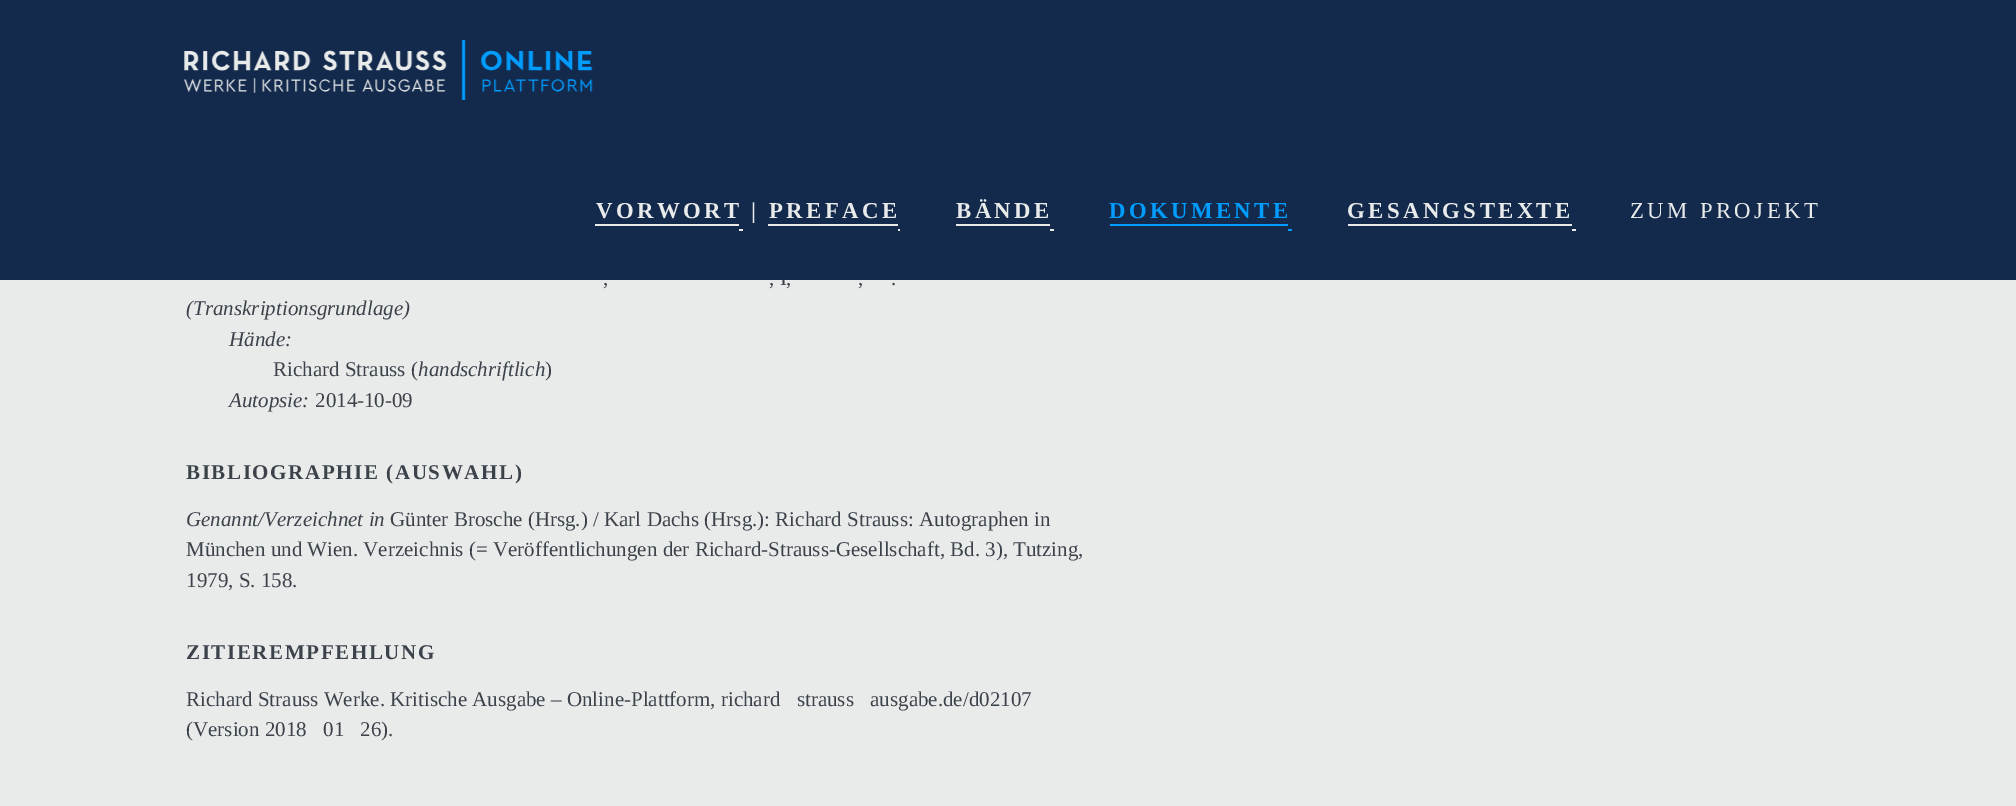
%!PS
<< /PageSize [2016 806] >> setpagedevice
/picture { 5 dict begin { /h /w /y /x /name } { exch def } forall
  gsave x y translate w h scale
  w h 8 [w 0 0 h 0 0] name (r) file false 3 colorimage grestore end } def
0 806 translate 1 -1 scale
4 setmiterlimit
0.914 0.922 0.922 setrgbcolor
0 0 2016 806 rectfill
/LiberationSerif-Regular [21 0 0 -21 0 0] selectfont
0.231 0.259 0.29 setrgbcolor
769 285 moveto (, I,) show
0.075 0.165 0.302 setrgbcolor
0 0 2016 280 rectfill
(img1.rgb) 184 40 409 60 picture
0.914 0.922 0.922 setrgbcolor
595 224 147 2 rectfill
739 229 4 2 rectfill
/LiberationSerif-Bold [22.75 0 0 -22.75 0 0] selectfont
596 218 moveto 3.4 0 (VORWORT | PREFACE) ashow
0.075 0.165 0.302 setrgbcolor
739 224 3 5 rectfill
0.914 0.922 0.922 setrgbcolor
956 224 98 2 rectfill
1050 229 4 2 rectfill
956 218 moveto 3.4 0 (BÄNDE) ashow
0.075 0.165 0.302 setrgbcolor
1050 224 4 5 rectfill
0 0.616 1 setrgbcolor
1110 224 182 2 rectfill
1288 229 4 2 rectfill
1109 218 moveto 3.4 0 (DOKUMENTE) ashow
0.075 0.165 0.302 setrgbcolor
1288 224 4 5 rectfill
0.914 0.922 0.922 setrgbcolor
1348 224 227 2 rectfill
1572 229 4 2 rectfill
1347 218 moveto 3.4 0 (GESANGSTEXTE) ashow
0.075 0.165 0.302 setrgbcolor
1572 224 3 5 rectfill
/LiberationSerif-Regular [22.75 0 0 -22.75 0 0] selectfont
0.914 0.922 0.922 setrgbcolor
1630 218 moveto 3.4 0 (ZUM PROJEKT) ashow
768 224 132 2 rectfill
898 229 2 2 rectfill
0.075 0.165 0.302 setrgbcolor
898 224 2 5 rectfill
/LiberationSerif-Regular [21 0 0 -21 0 0] selectfont
0.231 0.259 0.29 setrgbcolor
603 285 moveto (,) show
858 285 moveto (,) show
891 285 moveto (.) show
/LiberationSerif-Italic [21 0 0 -21 0 0] selectfont
186 315 moveto (\(Transkriptionsgrundlage\)) show
229 346 moveto (Hände:) show
/LiberationSerif-Regular [21 0 0 -21 0 0] selectfont
273 376 moveto (Richard Strauss \() show
/LiberationSerif-Italic [21 0 0 -21 0 0] selectfont
418 376 moveto (handschriftlich) show
/LiberationSerif-Regular [21 0 0 -21 0 0] selectfont
545 376 moveto (\)) show
/LiberationSerif-Italic [21 0 0 -21 0 0] selectfont
229 407 moveto (Autopsie:) show
/LiberationSerif-Regular [21 0 0 -21 0 0] selectfont
315 407 moveto (2014-10-09) show
/LiberationSerif-Bold [21 0 0 -21 0 0] selectfont
186 479 moveto 1.6 0 (BIBLIOGRAPHIE \(AUSWAHL\)) ashow
/LiberationSerif-Italic [21 0 0 -21 0 0] selectfont
186 526 moveto (Genannt/Verzeichnet in) show
/LiberationSerif-Regular [21 0 0 -21 0 0] selectfont
390 526 moveto (Günter Brosche \(Hrsg.\) / Karl Dachs \(Hrsg.\): Richard Strauss: Autographen in) show
186 556 moveto (München und Wien. Verzeichnis \(= Veröffentlichungen der Richard-Strauss-Gesellschaft, Bd. 3\), Tutzing,) show
186 587 moveto (1979, S. 158.) show
/LiberationSerif-Bold [21 0 0 -21 0 0] selectfont
186 659 moveto 1.6 0 (ZITIEREMPFEHLUNG) ashow
/LiberationSerif-Regular [21 0 0 -21 0 0] selectfont
186 706 moveto (Richard Strauss Werke. Kritische Ausgabe – Online-Plattform, richard‑strauss‑ausgabe.de/d02107) show
186 736 moveto (\(Version 2018‑01‑26\).) show
showpage
